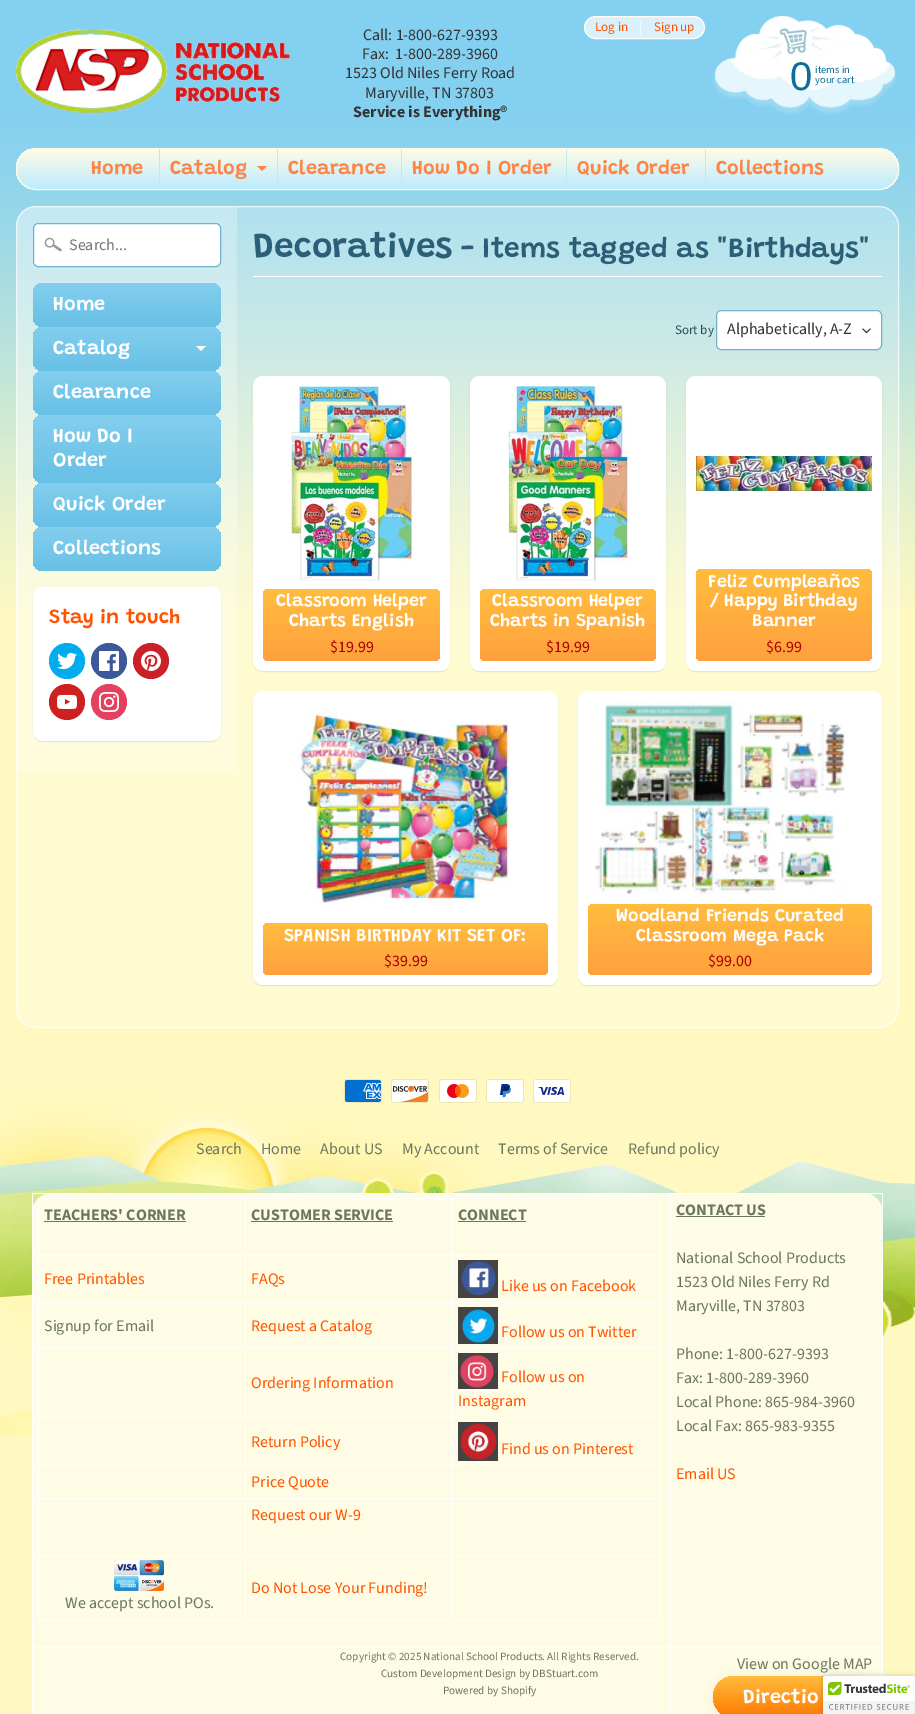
%!PS
<< /PageSize [915 1714] /PageUsesTransparency true >> setpagedevice
/alpha { dup .setfillconstantalpha .setstrokeconstantalpha } def
/roundrect { 5 dict begin { /r /h /w /y /x } { exch def } forall
  x r add y moveto x w add y 2 copy h add r arct x w add y h add x 1 index r arct
  x y h add x y r arct x y 2 copy exch w add exch r arct closepath end } def
/shadow { 12 dict begin { /a /b /q /h /w /y /x } { exch def } forall gsave /was 0 def
  9 -2 -9 { dup b mul 4 div /e exch def 1 sub .425 mul 2.718 exch exp 1 add a .99 .min exch div /now exch def
    1 1 now sub 1 was sub div sub alpha /was now def
    w h .min e 2 mul add 0 gt { x e sub y e sub w e 2 mul add h e 2 mul add
      q e add b .6 mul add w h .min 2 div e add .min 0 .max roundrect fill } if } for grestore end } def
/picture { 5 dict begin { /h /w /y /x /name } { exch def } forall
  gsave x y translate w h scale
  w h 8 [w 0 0 h 0 0] name (r) file false 3 colorimage grestore end } def
0 .pushpdf14devicefilter
0 1714 translate 1 -1 scale
4 setmiterlimit
1 0.976 0.757 setrgbcolor
0 0 915 1714 rectfill
(img1.rgb) 0 0 915 607 picture
(img2.rgb) 16 29 274 86 picture
/SourceSansPro-Regular [16 0 0 -16 0 0] selectfont
0.2 setgray
363 40 moveto (Call: 1-800-627-9393) show
362 59 moveto (Fax:  1-800-289-3960) show
345 78 moveto (1523 Old Niles Ferry Road) show
365 98 moveto (Maryville, TN 37803) show
/SourceSansPro-Bold [16 0 0 -16 0 0] selectfont
353 117 moveto (Service is Everything®) show
0.855 0.945 0.984 setrgbcolor
584.5 16.5 120 22 11 roundrect gsave fill grestore
1 setgray
stroke
/SourceSansPro-Regular [13 0 0 -13 0 0] selectfont
1 0.325 0 setrgbcolor
595 31 moveto (Log in) show
1 setgray
639 31 moveto (|) show
1 0.325 0 setrgbcolor
654 31 moveto (Sign up) show
(img3.rgb) 713 16 184 99 picture
/LiberationSans-Regular [40 0 0 -40 0 0] selectfont
0.039 0.431 0.6 setrgbcolor
790 90 moveto (0) show
/SourceSansPro-Regular [10.5 0 0 -10.5 0 0] selectfont
815 73 moveto (items in) show
815 83 moveto (your cart) show
gsave
16 148 883 42 20 roundrect clip newpath
gsave newpath 16 149 moveto 899 149 lineto 899 189 lineto 16 189 lineto closepath clip newpath
<< /ShadingType 2 /ColorSpace /DeviceRGB /Coords [458 149 458 189] /Extend [true true] /Function << /FunctionType 2 /Domain [0 1] /C0 [1 0.988 0.898] /C1 [0.737 0.922 1] /N 1 >> >> shfill grestore
grestore
1 0.988 0.898 setrgbcolor
16.5 148.5 882 41 19.5 roundrect stroke
/Grandstander-SemiBold [20 0 0 -20 0 0] selectfont
0.996 0.514 0.271 setrgbcolor
91 174 moveto (Home) show
0.765 0.906 0.918 setrgbcolor
159 149 1 40 rectfill
0.996 0.514 0.271 setrgbcolor
170 174 moveto (Catalog) show
newpath 257 166 moveto 267 166 lineto 262 171 lineto closepath fill
0.765 0.906 0.918 setrgbcolor
277 149 1 40 rectfill
0.996 0.514 0.271 setrgbcolor
288 174 moveto (Clearance) show
0.765 0.906 0.918 setrgbcolor
401 149 1 40 rectfill
0.996 0.514 0.271 setrgbcolor
412 174 moveto (How Do I Order) show
0.765 0.906 0.918 setrgbcolor
566 149 1 40 rectfill
0.996 0.514 0.271 setrgbcolor
577 174 moveto (Quick Order) show
0.765 0.906 0.918 setrgbcolor
705 149 1 40 rectfill
0.996 0.514 0.271 setrgbcolor
716 174 moveto (Collections) show
0.25 alpha
1 setgray
16 206 883 822 20 roundrect fill
0.7 alpha
16.5 206.5 882 821 19.5 roundrect stroke
0.25 alpha
newpath 36 207 moveto 237 207 lineto 237 773 lineto 17 773 lineto 17 226 lineto 17 215.5 25.5 207 36 207 curveto closepath fill
1 alpha
33 223 188 44 5 roundrect fill
(img4.rgb) 44 237 18 15 picture
0.439 0.694 0.8 setrgbcolor
33.5 223.5 187 43 4.5 roundrect stroke
/SourceSansPro-Regular [16 0 0 -16 0 0] selectfont
0.459 setgray
69 250 moveto (Search...) show
gsave 33 283 188 44 10 roundrect clip newpath
<< /ShadingType 2 /ColorSpace /DeviceRGB /Coords [127 283 127 327] /Extend [true true] /Function << /FunctionType 2 /Domain [0 1] /C0 [0.514 0.808 0.933] /C1 [0.404 0.753 0.898] /N 1 >> >> shfill grestore
/Grandstander-SemiBold [20 0 0 -20 0 0] selectfont
1 setgray
53 310 moveto (Home) show
gsave 33 327 188 44 10 roundrect clip newpath
<< /ShadingType 2 /ColorSpace /DeviceRGB /Coords [127 327 127 371] /Extend [true true] /Function << /FunctionType 2 /Domain [0 1] /C0 [0.514 0.808 0.933] /C1 [0.404 0.753 0.898] /N 1 >> >> shfill grestore
53 354 moveto (Catalog) show
newpath 196 346 moveto 206 346 lineto 201 351 lineto closepath fill
gsave 33 371 188 44 10 roundrect clip newpath
<< /ShadingType 2 /ColorSpace /DeviceRGB /Coords [127 371 127 415] /Extend [true true] /Function << /FunctionType 2 /Domain [0 1] /C0 [0.514 0.808 0.933] /C1 [0.404 0.753 0.898] /N 1 >> >> shfill grestore
53 398 moveto (Clearance) show
gsave 33 415 188 68 10 roundrect clip newpath
<< /ShadingType 2 /ColorSpace /DeviceRGB /Coords [127 415 127 483] /Extend [true true] /Function << /FunctionType 2 /Domain [0 1] /C0 [0.514 0.808 0.933] /C1 [0.404 0.753 0.898] /N 1 >> >> shfill grestore
53 442 moveto (How Do I) show
53 466 moveto (Order) show
gsave 33 483 188 44 10 roundrect clip newpath
<< /ShadingType 2 /ColorSpace /DeviceRGB /Coords [127 483 127 527] /Extend [true true] /Function << /FunctionType 2 /Domain [0 1] /C0 [0.514 0.808 0.933] /C1 [0.404 0.753 0.898] /N 1 >> >> shfill grestore
53 510 moveto (Quick Order) show
gsave 33 527 188 44 10 roundrect clip newpath
<< /ShadingType 2 /ColorSpace /DeviceRGB /Coords [127 527 127 571] /Extend [true true] /Function << /FunctionType 2 /Domain [0 1] /C0 [0.514 0.808 0.933] /C1 [0.404 0.753 0.898] /N 1 >> >> shfill grestore
53 554 moveto (Collections) show
0 setgray
33 588 188 154 10 0.5 0.1 shadow
1 setgray
33 587 188 154 10 roundrect fill
1 0.325 0 setrgbcolor
49 623 moveto (Stay in touch) show
0 0.675 0.929 setrgbcolor
newpath 67 661 18 0 360 arc closepath fill
(img5.rgb) 57 652 20 18 picture
0.231 0.349 0.596 setrgbcolor
newpath 109 661 18 0 360 arc closepath fill
(img6.rgb) 99 651 20 20 picture
0.796 0.125 0.153 setrgbcolor
newpath 151 661 18 0 360 arc closepath fill
(img7.rgb) 141 651 20 20 picture
0.804 0.125 0.122 setrgbcolor
newpath 67 702 18 0 360 arc closepath fill
(img8.rgb) 57 694 20 15 picture
0.894 0.251 0.373 setrgbcolor
newpath 109 702 18 0 360 arc closepath fill
(img9.rgb) 99 692 20 20 picture
1 setgray
253 276 629 1 rectfill
/Grandstander-SemiBold [35.25 0 0 -35.25 0 0] selectfont
0.169 0.373 0.467 setrgbcolor
253 257 moveto (Decoratives) show
/Grandstander-SemiBold [28.2 0 0 -28.2 0 0] selectfont
461 257 moveto (- Items tagged as "Birthdays") show
/SourceSansPro-Regular [13 0 0 -13 0 0] selectfont
0.137 0.302 0.38 setrgbcolor
675 334 moveto (Sort by) show
1 setgray
716 310 166 40 5 roundrect fill
(img10.rgb) 862 328 9 6 picture
0.439 0.694 0.8 setrgbcolor
716.5 310.5 165 39 4.5 roundrect stroke
/SourceSansPro-Regular [16 0 0 -16 0 0] selectfont
0.2 setgray
727 334 moveto (Alphabetically, A-Z) show
0 setgray
253 377 197 295 10 0.5 0.1 shadow
1 setgray
253 376 197 295 10 roundrect fill
(img11.rgb) 291 386 121 195 picture
gsave 263 589 177 72 6 roundrect clip newpath
<< /ShadingType 2 /ColorSpace /DeviceRGB /Coords [352 589 352 661] /Extend [true true] /Function << /FunctionType 2 /Domain [0 1] /C0 [1 0.741 0.243] /C1 [1 0.627 0.243] /N 1 >> >> shfill grestore
/Grandstander-SemiBold [18 0 0 -18 0 0] selectfont
276 606 moveto (Classroom Helper) show
289 626 moveto (Charts English) show
/SourceSansPro-Regular [16 0 0 -16 0 0] selectfont
0.667 0 0 setrgbcolor
330 652 moveto ($19.99) show
0 setgray
470 377 196 295 10 0.5 0.1 shadow
1 setgray
470 376 196 295 10 roundrect fill
(img12.rgb) 508 386 120 195 picture
gsave 480 589 176 72 6 roundrect clip newpath
<< /ShadingType 2 /ColorSpace /DeviceRGB /Coords [568 589 568 661] /Extend [true true] /Function << /FunctionType 2 /Domain [0 1] /C0 [1 0.741 0.243] /C1 [1 0.627 0.243] /N 1 >> >> shfill grestore
/Grandstander-SemiBold [18 0 0 -18 0 0] selectfont
492 606 moveto (Classroom Helper) show
490 626 moveto (Charts in Spanish) show
/SourceSansPro-Regular [16 0 0 -16 0 0] selectfont
0.667 0 0 setrgbcolor
546 652 moveto ($19.99) show
0 setgray
686 377 196 295 10 0.5 0.1 shadow
1 setgray
686 376 196 295 10 roundrect fill
(img13.rgb) 696 456 176 35 picture
gsave 696 569 176 92 6 roundrect clip newpath
<< /ShadingType 2 /ColorSpace /DeviceRGB /Coords [784 569 784 661] /Extend [true true] /Function << /FunctionType 2 /Domain [0 1] /C0 [1 0.741 0.243] /C1 [1 0.627 0.243] /N 1 >> >> shfill grestore
/Grandstander-SemiBold [18 0 0 -18 0 0] selectfont
708 587 moveto (Feliz Cumpleaños) show
710 606 moveto (/ Happy Birthday) show
752 626 moveto (Banner) show
/SourceSansPro-Regular [16 0 0 -16 0 0] selectfont
0.667 0 0 setrgbcolor
766 652 moveto ($6.99) show
0 setgray
253 692 305 294 10 0.5 0.1 shadow
1 setgray
253 691 305 294 10 roundrect fill
(img14.rgb) 297 711 213 192 picture
gsave 263 923 285 52 6 roundrect clip newpath
<< /ShadingType 2 /ColorSpace /DeviceRGB /Coords [406 923 406 975] /Extend [true true] /Function << /FunctionType 2 /Domain [0 1] /C0 [1 0.741 0.243] /C1 [1 0.627 0.243] /N 1 >> >> shfill grestore
/Grandstander-SemiBold [18 0 0 -18 0 0] selectfont
284 941 moveto (SPANISH BIRTHDAY KIT SET OF:) show
/SourceSansPro-Regular [16 0 0 -16 0 0] selectfont
0.667 0 0 setrgbcolor
384 966 moveto ($39.99) show
0 setgray
578 692 304 294 10 0.5 0.1 shadow
1 setgray
578 691 304 294 10 roundrect fill
(img15.rgb) 594 701 254 194 picture
gsave 588 904 284 71 6 roundrect clip newpath
<< /ShadingType 2 /ColorSpace /DeviceRGB /Coords [730 904 730 975] /Extend [true true] /Function << /FunctionType 2 /Domain [0 1] /C0 [1 0.741 0.243] /C1 [1 0.627 0.243] /N 1 >> >> shfill grestore
/Grandstander-SemiBold [18 0 0 -18 0 0] selectfont
616 921 moveto (Woodland Friends Curated) show
636 941 moveto (Classroom Mega Pack) show
/SourceSansPro-Regular [16 0 0 -16 0 0] selectfont
0.667 0 0 setrgbcolor
708 966 moveto ($99.00) show
(img16.rgb) 0 1098 915 338 picture
(img17.rgb) 344 1079 38 24 picture
(img18.rgb) 391 1079 38 24 picture
(img19.rgb) 439 1079 38 24 picture
(img20.rgb) 486 1079 38 24 picture
(img21.rgb) 533 1079 38 24 picture
0.42 0.463 0.373 setrgbcolor
196 1154 moveto (Search) show
261 1154 moveto (Home) show
320 1154 moveto (About US) show
402 1154 moveto (My Account) show
498 1154 moveto (Terms of Service) show
628 1154 moveto (Refund policy) show
1 0.988 0.898 setrgbcolor
32 1193 851 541 20 roundrect fill
1 setgray
670 1193 213 1 rectfill
670 1647 213 1 rectfill
670 1647 1 67 rectfill
32 1647 639 1 rectfill
670 1193 1 455 rectfill
32 1193 639 1 rectfill
32 1647 1 67 rectfill
32 1193 1 455 rectfill
452 1198 208 1 rectfill
452 1255 208 1 rectfill
452 1302 208 1 rectfill
452 1348 208 1 rectfill
452 1417 208 1 rectfill
452 1465 208 1 rectfill
452 1498 208 1 rectfill
452 1555 208 1 rectfill
659 1555 1 65 rectfill
452 1619 208 1 rectfill
452 1555 1 65 rectfill
245 1555 208 1 rectfill
452 1498 1 58 rectfill
245 1498 208 1 rectfill
452 1465 1 34 rectfill
245 1465 208 1 rectfill
452 1417 1 49 rectfill
245 1417 208 1 rectfill
452 1348 1 70 rectfill
245 1348 208 1 rectfill
452 1302 1 47 rectfill
245 1302 208 1 rectfill
452 1255 1 48 rectfill
245 1255 208 1 rectfill
452 1198 1 58 rectfill
245 1198 208 1 rectfill
245 1619 208 1 rectfill
245 1555 1 65 rectfill
38 1555 208 1 rectfill
245 1498 1 58 rectfill
38 1498 208 1 rectfill
245 1465 1 34 rectfill
38 1465 208 1 rectfill
245 1417 1 49 rectfill
38 1417 208 1 rectfill
245 1348 1 70 rectfill
38 1348 208 1 rectfill
245 1302 1 47 rectfill
38 1302 208 1 rectfill
245 1255 1 48 rectfill
38 1255 208 1 rectfill
245 1198 1 58 rectfill
38 1198 208 1 rectfill
38 1619 208 1 rectfill
38 1555 1 65 rectfill
38 1498 1 58 rectfill
38 1465 1 34 rectfill
38 1417 1 49 rectfill
38 1348 1 70 rectfill
38 1302 1 47 rectfill
38 1255 1 48 rectfill
38 1198 1 58 rectfill
/SourceSansPro-Bold [16 0 0 -16 0 0] selectfont
0.42 0.463 0.373 setrgbcolor
44 1220 moveto (TEACHERS' CORNER) show
44 1221 142 1 rectfill
251 1220 moveto (CUSTOMER SERVICE) show
251 1221 142 1 rectfill
1 setgray
659 1498 1 58 rectfill
659 1465 1 34 rectfill
659 1417 1 49 rectfill
659 1348 1 70 rectfill
659 1302 1 47 rectfill
659 1255 1 48 rectfill
659 1198 1 58 rectfill
0.42 0.463 0.373 setrgbcolor
458 1220 moveto (CONNECT) show
458 1221 68 1 rectfill
/SourceSansPro-Regular [16 0 0 -16 0 0] selectfont
1 0.325 0 setrgbcolor
44 1284 moveto (Free Printables) show
251 1284 moveto (FAQs) show
(img22.rgb) 458 1260 40 38 picture
501 1291 moveto (Like us on Facebook) show
0.42 0.463 0.373 setrgbcolor
44 1331 moveto (Signup for Email) show
1 0.325 0 setrgbcolor
251 1331 moveto (Request a Catalog) show
(img23.rgb) 458 1307 40 37 picture
501 1337 moveto (Follow us on Twitter) show
251 1388 moveto (Ordering Information) show
(img24.rgb) 458 1353 40 36 picture
501 1382 moveto (Follow us on) show
458 1406 moveto (Instagram) show
251 1447 moveto (Return Policy) show
(img25.rgb) 458 1422 40 39 picture
501 1454 moveto (Find us on Pinterest) show
251 1487 moveto (Price Quote) show
251 1520 moveto (Request our W-9) show
251 1593 moveto (Do Not Lose Your Funding!) show
(img26.rgb) 114 1560 50 31 picture
0.42 0.463 0.373 setrgbcolor
65 1608 moveto (We accept school POs.) show
1 setgray
882 1647 1 29 rectfill
882 1193 1 455 rectfill
/SourceSansPro-Bold [16 0 0 -16 0 0] selectfont
0.42 0.463 0.373 setrgbcolor
676 1215 moveto (CONTACT US) show
676 1216 89 1 rectfill
/SourceSansPro-Regular [16 0 0 -16 0 0] selectfont
676 1263 moveto (National School Products) show
676 1287 moveto (1523 Old Niles Ferry Rd) show
676 1311 moveto (Maryville, TN 37803) show
676 1359 moveto (Phone: 1-800-627-9393) show
676 1383 moveto (Fax: 1-800-289-3960) show
676 1407 moveto (Local Phone: 865-984-3960) show
676 1431 moveto (Local Fax: 865-983-9355) show
1 0.325 0 setrgbcolor
676 1479 moveto (Email US) show
0.42 0.463 0.373 setrgbcolor
737 1669 moveto (View on Google MAP) show
0 setgray
716 1679 159 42 21 6 0.1 shadow
gsave 713 1676 159 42 21 roundrect clip newpath
<< /ShadingType 2 /ColorSpace /DeviceRGB /Coords [793 1676 793 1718] /Extend [true true] /Function << /FunctionType 2 /Domain [0 1] /C0 [1 0.741 0.243] /C1 [1 0.467 0] /N 1 >> >> shfill grestore
/Grandstander-SemiBold [20 0 0 -20 0 0] selectfont
1 setgray
743 1703 moveto (Directio) show
/SourceSansPro-Regular [11.2 0 0 -11.2 0 0] selectfont
0.42 0.463 0.373 setrgbcolor
340 1660 moveto (Copyright © 2025 National School Products. All Rights Reserved.) show
381 1677 moveto (Custom Development Design by DBStuart.com) show
443 1694 moveto (Powered by Shopify) show
0 setgray
823 1676 92 38 2 2.5 0.2 shadow
1 setgray
newpath 825 1676 moveto 915 1676 lineto 915 1714 lineto 823 1714 lineto 823 1678 lineto 823 1677 824 1676 825 1676 curveto closepath fill
(img27.rgb) 823 1676 92 38 picture
.poppdf14devicefilter showpage
